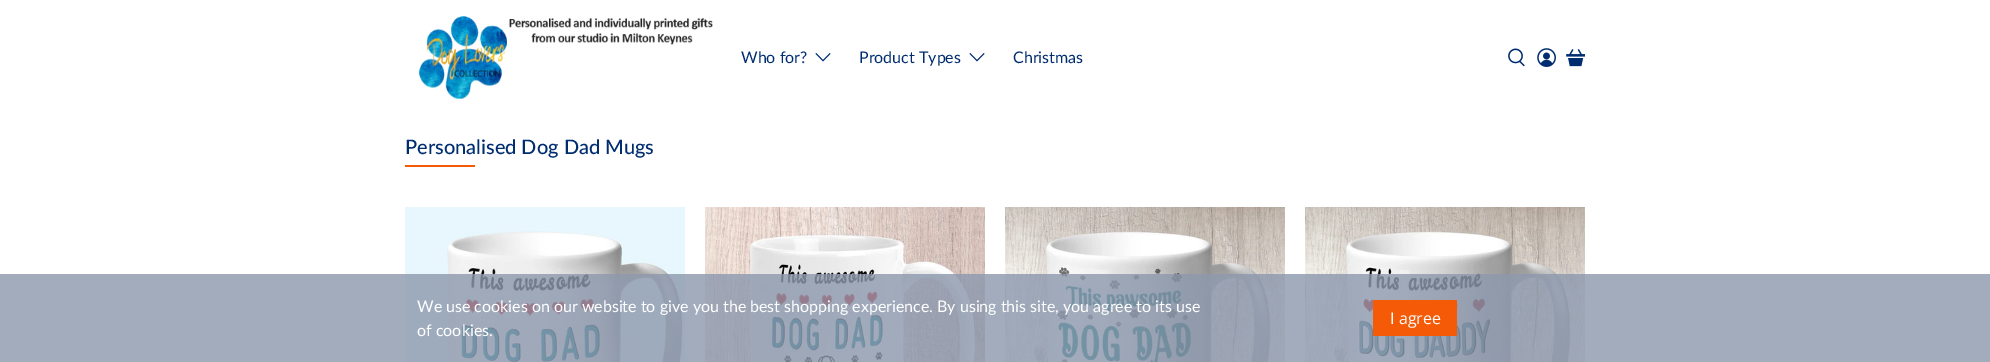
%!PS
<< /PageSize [1990 362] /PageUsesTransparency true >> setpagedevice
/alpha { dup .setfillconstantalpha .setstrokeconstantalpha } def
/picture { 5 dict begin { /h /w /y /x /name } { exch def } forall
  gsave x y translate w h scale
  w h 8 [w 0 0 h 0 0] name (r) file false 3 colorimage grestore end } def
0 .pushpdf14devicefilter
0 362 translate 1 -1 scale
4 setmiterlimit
1 setgray
0 0 1990 362 rectfill
(img1.rgb) 418 16 295 83 picture
/Lato-Regular [16 0 0 -16 0 0] selectfont
0 0.176 0.439 setrgbcolor
741 63 moveto (Who for?) show
(img2.rgb) 815 53 16 9 picture
859 63 moveto (Product Types) show
(img2.rgb) 969 53 16 9 picture
1013 63 moveto (Christmas) show
(img3.rgb) 1508 48 17 19 picture
(img4.rgb) 1537 48 19 19 picture
(img5.rgb) 1566 49 19 18 picture
/Lato-Medium [20 0 0 -20 0 0] selectfont
405 154 moveto (Personalised Dog Dad Mugs) show
0.961 0.353 0.024 setrgbcolor
405 165 70 2 rectfill
(img6.rgb) 405 207 280 155 picture
(img7.rgb) 705 207 280 155 picture
(img8.rgb) 1005 207 280 155 picture
(img9.rgb) 1305 207 280 155 picture
0.81 alpha
0.553 0.6 0.682 setrgbcolor
0 274 1990 88 rectfill
/Lato-Regular [16 0 0 -16 0 0] selectfont
1 alpha
1 setgray
417 312 moveto (We use cookies on our website to give you the best shopping experience. By using this site, you agree to its use) show
417 336 moveto (of cookies.) show
0.961 0.353 0.024 setrgbcolor
1373 300 84 36 rectfill
/OpenSans-Regular [16 0 0 -16 0 0] selectfont
1 setgray
1390 324 moveto (I agree) show
.poppdf14devicefilter showpage
